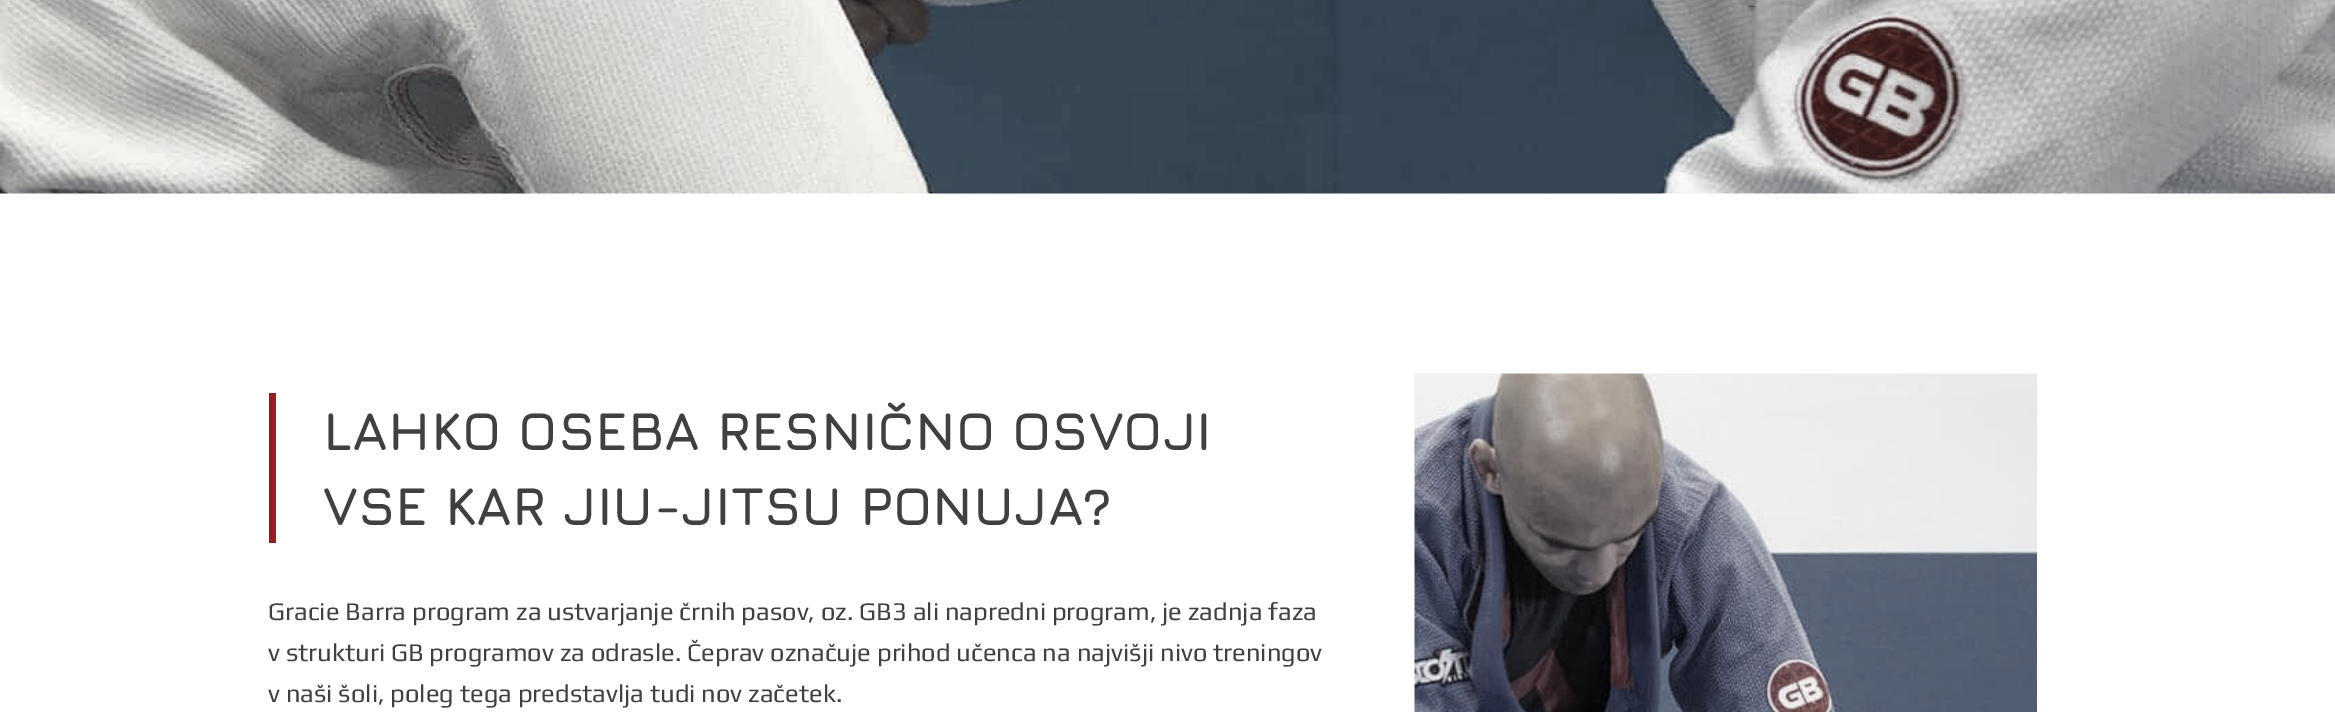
%!PS
<< /PageSize [2335 712] >> setpagedevice
/picture { 5 dict begin { /h /w /y /x /name } { exch def } forall
  gsave x y translate w h scale
  w h 8 [w 0 0 h 0 0] name (r) file false 3 colorimage grestore end } def
0 712 translate 1 -1 scale
4 setmiterlimit
1 setgray
0 0 2335 712 rectfill
(img1.rgb) 0 0 2335 194 picture
0.6 0.11 0.125 setrgbcolor
269 393 7 150 rectfill
/Jura-Bold [54 0 0 -54 0 0] selectfont
0.251 setgray
323 450 moveto (LAHKO OSEBA RESNIČNO OSVOJI) show
323 525 moveto (VSE KAR JIU-JITSU PONUJA?) show
/Play-Regular [25.5 0 0 -25.5 0 0] selectfont
268 620 moveto (Gracie Barra program za ustvarjanje črnih pasov, oz. GB3 ali napredni program, je zadnja faza) show
268 661 moveto (v strukturi GB programov za odrasle. Čeprav označuje prihod učenca na najvišji nivo treningov) show
268 702 moveto (v naši šoli, poleg tega predstavlja tudi nov začetek.) show
(img2.rgb) 1414 373 623 339 picture
showpage
